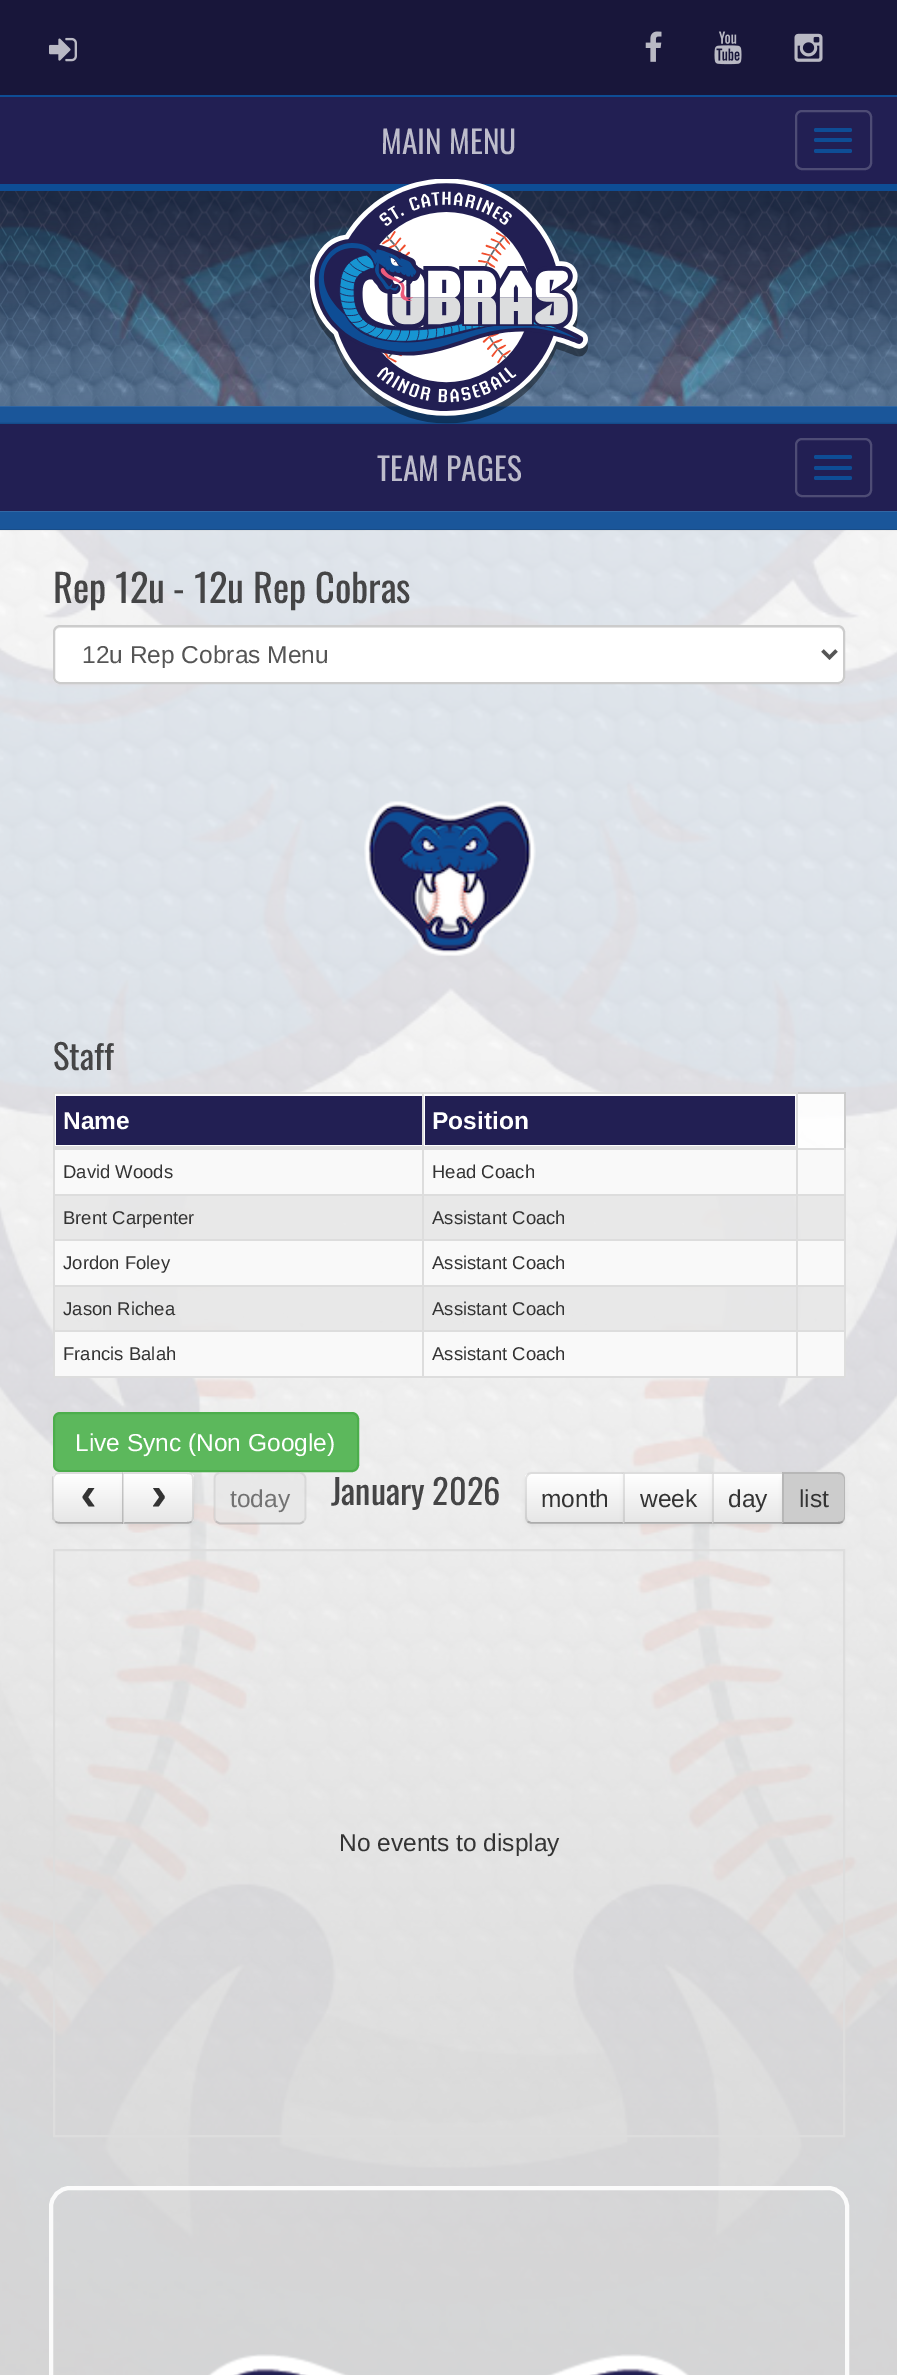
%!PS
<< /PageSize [897 2375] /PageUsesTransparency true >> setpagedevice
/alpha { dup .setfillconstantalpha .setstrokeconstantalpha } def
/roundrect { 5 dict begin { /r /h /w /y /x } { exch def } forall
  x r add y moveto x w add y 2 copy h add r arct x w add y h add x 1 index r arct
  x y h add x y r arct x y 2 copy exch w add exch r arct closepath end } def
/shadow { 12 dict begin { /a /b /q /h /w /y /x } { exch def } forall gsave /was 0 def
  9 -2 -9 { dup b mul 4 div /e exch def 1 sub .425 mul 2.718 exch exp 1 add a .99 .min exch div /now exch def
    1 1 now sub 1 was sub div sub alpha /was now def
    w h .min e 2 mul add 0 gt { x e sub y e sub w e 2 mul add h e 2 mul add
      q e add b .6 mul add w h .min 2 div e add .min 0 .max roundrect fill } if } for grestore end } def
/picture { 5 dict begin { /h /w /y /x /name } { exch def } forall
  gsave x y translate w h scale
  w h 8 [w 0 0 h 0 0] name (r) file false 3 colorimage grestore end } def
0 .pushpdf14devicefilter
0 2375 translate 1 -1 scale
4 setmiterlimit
1 setgray
0 0 897 2375 rectfill
0.055 0.302 0.584 setrgbcolor
0 95 897 2 rectfill
0.094 0.086 0.227 setrgbcolor
0 0 897 95 rectfill
(img1.rgb) 49 37 28 25 picture
(img2.rgb) 645 31 17 31 picture
(img3.rgb) 714 31 28 34 picture
(img4.rgb) 794 33 29 29 picture
0.133 0.122 0.325 setrgbcolor
0 97 897 87 rectfill
0.055 0.302 0.584 setrgbcolor
0 184 897 7 rectfill
/Oswald-Regular [31.5 0 0 -31.5 0 0] selectfont
0.741 0.737 0.796 setrgbcolor
381 154 moveto (MAIN MENU) show
0.306 0.298 0.459 setrgbcolor
2 setlinewidth
796 111 75 58 6 roundrect stroke
0.055 0.302 0.584 setrgbcolor
814 128 38 4 2 roundrect fill
814 138 38 4 2 roundrect fill
814 149 38 4 2 roundrect fill
(img6.rgb) 0 191 897 2184 picture
(img7.rgb) 0 191 897 215 picture
0 406 897 18 rectfill
(img8.rgb) 0 406 897 18 picture
(img5.rgb) 310 179 278 245 picture
0.133 0.122 0.325 setrgbcolor
0 424 897 87 rectfill
0.741 0.737 0.796 setrgbcolor
377 481 moveto (TEAM PAGES) show
0.306 0.298 0.459 setrgbcolor
796 439 75 57 6 roundrect stroke
0.055 0.302 0.584 setrgbcolor
814 455 38 4 2 roundrect fill
814 466 38 4 2 roundrect fill
814 476 38 4 2 roundrect fill
0 511 897 19 rectfill
0.8 alpha
1 setgray
0 530 897 1845 rectfill
1 alpha
(img9.rgb) 0 511 897 20 picture
/Oswald-Regular [38.5 0 0 -38.5 0 0] selectfont
0.271 0.271 0.275 setrgbcolor
53 603 moveto (Rep 12u) show
173 603 moveto (-) show
194 603 moveto (12u Rep Cobras) show
1 setgray
53 625 792 59 7 roundrect fill
0.925 setgray
newpath 60 628 moveto 838 628 lineto 841 628 844 631 844 634 curveto 844 631 843 627 839 627 curveto 59 627 lineto 55 627 54 631 54 634 curveto 54 631 57 628 60 628 curveto closepath fill
0.8 setgray
54 626 790 57 6 roundrect stroke
0.333 setgray
3.5 setlinewidth
newpath 822.5 650.5 moveto 829.5 657.5 lineto 836.5 650.5 lineto stroke
/LiberationSans-Regular [24.5 0 0 -24.5 0 0] selectfont
82 663 moveto (12u Rep Cobras Menu) show
(img10.rgb) 364 801 172 155 picture
/Oswald-Regular [34.5 0 0 -34.5 0 0] selectfont
0.271 0.271 0.275 setrgbcolor
53 1070 moveto (Staff) show
0.9 alpha
1 setgray
55 1094 789 54 rectfill
1 alpha
0.8 setgray
798 1092 47 2 rectfill
844 1092 2 58 rectfill
0.133 0.122 0.325 setrgbcolor
56 1096 366 49 rectfill
0.867 setgray
422 1092 376 2 rectfill
0.976 setgray
55 1150 789 44 rectfill
0.867 setgray
796 1194 49 2 rectfill
0.9 alpha
0.906 setgray
55 1196 789 43 rectfill
1 alpha
0.867 setgray
796 1239 49 2 rectfill
0.976 setgray
55 1241 789 44 rectfill
0.867 setgray
796 1285 49 2 rectfill
0.9 alpha
0.906 setgray
55 1287 789 43 rectfill
1 alpha
0.867 setgray
796 1330 49 2 rectfill
0.976 setgray
55 1332 789 44 rectfill
0.867 setgray
844 1330 2 47 rectfill
796 1376 49 2 rectfill
796 1330 2 47 rectfill
422 1330 376 2 rectfill
796 1285 2 47 rectfill
422 1285 376 2 rectfill
796 1239 2 47 rectfill
422 1239 376 2 rectfill
796 1194 2 47 rectfill
422 1194 376 2 rectfill
422 1376 376 2 rectfill
422 1330 2 47 rectfill
53 1330 371 2 rectfill
422 1285 2 47 rectfill
53 1285 371 2 rectfill
422 1239 2 47 rectfill
53 1239 371 2 rectfill
422 1194 2 47 rectfill
53 1194 371 2 rectfill
422 1148 2 47 rectfill
422 1092 2 58 rectfill
53 1092 371 2 rectfill
53 1376 371 2 rectfill
53 1330 2 47 rectfill
53 1285 2 47 rectfill
53 1239 2 47 rectfill
53 1148 2 93 rectfill
53 1092 2 58 rectfill
/LiberationSans-Bold [24.5 0 0 -24.5 0 0] selectfont
1 setgray
63 1129 moveto (Name) show
0.133 0.122 0.325 setrgbcolor
425 1096 370 49 rectfill
0.867 setgray
796 1148 49 2 rectfill
796 1148 2 47 rectfill
796 1092 2 58 rectfill
53 1146 745 4 rectfill
1 setgray
432 1129 moveto (Position) show
/LiberationSans-Regular [18.5 0 0 -18.5 0 0] selectfont
0.2 setgray
63 1178 moveto (David Woods) show
432 1178 moveto (Head Coach) show
0.867 setgray
844 1285 2 47 rectfill
844 1239 2 47 rectfill
844 1194 2 47 rectfill
844 1148 2 47 rectfill
0.2 setgray
63 1224 moveto (Brent Carpenter) show
432 1224 moveto (Assistant Coach) show
63 1269 moveto (Jordon Foley) show
432 1269 moveto (Assistant Coach) show
63 1315 moveto (Jason Richea) show
432 1315 moveto (Assistant Coach) show
63 1360 moveto (Francis Balah) show
432 1360 moveto (Assistant Coach) show
0.361 0.722 0.361 setrgbcolor
54 1413 304 58 6 roundrect gsave fill grestore
0.298 0.682 0.298 setrgbcolor
2 setlinewidth
stroke
/LiberationSans-Regular [24.5 0 0 -24.5 0 0] selectfont
1 setgray
75 1451 moveto (Live Sync \(Non Google\)) show
0 setgray
53 1474 71 52 7 2 0.05 shadow
0.961 setgray
newpath 60 1472 moveto 124 1472 lineto 124 1524 lineto 60 1524 lineto 56 1524 53 1521 53 1517 curveto 53 1479 lineto 53 1475 56 1472 60 1472 curveto closepath fill
gsave
newpath 60 1472 moveto 124 1472 lineto 124 1524 lineto 60 1524 lineto 56 1524 53 1521 53 1517 curveto 53 1479 lineto 53 1475 56 1472 60 1472 curveto closepath clip newpath
gsave newpath 53 1474 moveto 123 1474 lineto 123 1523 lineto 53 1523 lineto closepath clip newpath
<< /ShadingType 2 /ColorSpace /DeviceRGB /Coords [88 1474 88 1523] /Extend [true true] /Function << /FunctionType 2 /Domain [0 1] /C0 [1 1 1] /C1 [0.902 0.902 0.902] /N 1 >> >> shfill grestore
grestore
0.2 alpha
1 setgray
newpath 60 1475 moveto 122 1475 lineto 122 1523 lineto 123 1523 lineto 123 1474 lineto 59 1474 lineto 56 1474 54 1476 54 1479 curveto 54 1480 lineto 54 1478 57 1475 60 1475 curveto closepath fill
0.1 alpha
0 setgray
newpath 60 1472 moveto 58 1472 56 1473 55 1474 curveto 56 1475 lineto 57 1474 59 1474 60 1474 curveto 122 1474 lineto 124 1472 lineto closepath fill
newpath 124 1524 moveto 124 1472 lineto 122 1474 lineto 122 1522 lineto closepath fill
0.25 alpha
newpath 124 1524 moveto 122 1522 lineto 60 1522 lineto 59 1522 57 1522 56 1521 curveto 55 1522 lineto 56 1523 58 1524 60 1524 curveto closepath fill
0.1 alpha
newpath 52 1477 moveto 55 1474 lineto 56 1475 lineto 55 1476 54 1477 54 1479 curveto 54 1517 lineto 54 1519 55 1520 56 1521 curveto 55 1522 lineto 52 1519 lineto closepath fill
gsave
74 1488 29 24 rectclip
/LiberationMono-Bold [49 0 0 -49 0 0] selectfont
1 alpha
0.2 setgray
74 1510 moveto (‹) show
grestore
1 alpha
123 1474 71 52 7 2 0.05 shadow
0.961 setgray
newpath 123 1472 moveto 187 1472 lineto 191 1472 194 1475 194 1479 curveto 194 1517 lineto 194 1521 191 1524 187 1524 curveto 123 1524 lineto closepath fill
gsave
newpath 123 1472 moveto 187 1472 lineto 191 1472 194 1475 194 1479 curveto 194 1517 lineto 194 1521 191 1524 187 1524 curveto 123 1524 lineto closepath clip newpath
gsave newpath 123 1474 moveto 194 1474 lineto 194 1523 lineto 123 1523 lineto closepath clip newpath
<< /ShadingType 2 /ColorSpace /DeviceRGB /Coords [158 1474 158 1523] /Extend [true true] /Function << /FunctionType 2 /Domain [0 1] /C0 [1 1 1] /C1 [0.902 0.902 0.902] /N 1 >> >> shfill grestore
grestore
0.2 alpha
1 setgray
newpath 124 1475 moveto 187 1475 lineto 190 1475 192 1478 192 1480 curveto 192 1519 lineto 191 1522 lineto 192 1521 193 1519 193 1518 curveto 193 1479 lineto 193 1476 191 1474 188 1474 curveto 124 1474 lineto closepath fill
0.1 alpha
0 setgray
newpath 192 1474 moveto 191 1473 189 1472 187 1472 curveto 123 1472 lineto 125 1474 lineto 187 1474 lineto 188 1474 190 1474 191 1475 curveto closepath fill
newpath 192 1474 moveto 193 1475 194 1477 194 1479 curveto 194 1517 lineto 194 1519 193 1521 192 1522 curveto 191 1521 lineto 192 1520 192 1518 192 1517 curveto 192 1479 lineto 192 1478 192 1476 191 1475 curveto closepath fill
0.25 alpha
newpath 192 1522 moveto 191 1523 189 1524 187 1524 curveto 123 1524 lineto 125 1522 lineto 187 1522 lineto 188 1522 190 1522 191 1521 curveto closepath fill
0.1 alpha
newpath 124 1474 moveto 124 1522 lineto 125 1522 lineto 122 1524 lineto 122 1472 lineto 125 1474 lineto closepath fill
gsave
144 1488 29 24 rectclip
/LiberationMono-Bold [49 0 0 -49 0 0] selectfont
1 alpha
0.2 setgray
144 1510 moveto (›) show
grestore
0.65 alpha
0.902 setgray
214 1472 92 52 7 roundrect fill
0.16 alpha
0 setgray
1.8 setlinewidth
newpath 303.5 1521.5 moveto 302.5 1522.5 301 1523.5 299 1523.5 curveto 220.5 1523.5 lineto 219 1523.5 217.5 1522.5 216 1521.5 curveto stroke
0.07 alpha
newpath 216 1521.5 moveto 215 1520.5 214.5 1519 214.5 1517 curveto 214.5 1479 lineto 214.5 1477 215 1475.5 216 1474.5 curveto 217.5 1473.5 219 1472.5 220.5 1472.5 curveto 299 1472.5 lineto 301 1472.5 302.5 1473.5 303.5 1474.5 curveto 304.5 1475.5 305.5 1477 305.5 1479 curveto 305.5 1517 lineto 305.5 1519 304.5 1520.5 303.5 1521.5 curveto stroke
1 alpha
0.447 setgray
230 1507 moveto (today) show
/Oswald-Regular [34.5 0 0 -34.5 0 0] selectfont
0.271 0.271 0.275 setrgbcolor
331 1505 moveto (January 2026) show
0 setgray
525 1474 100 52 7 2 0.05 shadow
0.961 setgray
newpath 532 1472 moveto 625 1472 lineto 625 1524 lineto 532 1524 lineto 528 1524 525 1521 525 1517 curveto 525 1479 lineto 525 1475 528 1472 532 1472 curveto closepath fill
gsave
newpath 532 1472 moveto 625 1472 lineto 625 1524 lineto 532 1524 lineto 528 1524 525 1521 525 1517 curveto 525 1479 lineto 525 1475 528 1472 532 1472 curveto closepath clip newpath
gsave newpath 525 1474 moveto 623 1474 lineto 623 1523 lineto 525 1523 lineto closepath clip newpath
<< /ShadingType 2 /ColorSpace /DeviceRGB /Coords [575 1474 575 1523] /Extend [true true] /Function << /FunctionType 2 /Domain [0 1] /C0 [1 1 1] /C1 [0.902 0.902 0.902] /N 1 >> >> shfill grestore
grestore
0.1 alpha
0 setgray
newpath 532 1472 moveto 530 1472 528 1473 527 1474 curveto 529 1475 lineto 531 1474 lineto 622 1474 lineto 624 1472 lineto closepath fill
newpath 625 1524 moveto 622 1522 lineto 623 1522 lineto 623 1474 lineto 622 1474 lineto 624 1472 lineto closepath fill
0.25 alpha
newpath 624 1524 moveto 532 1524 lineto 530 1524 528 1523 527 1522 curveto 529 1521 lineto 531 1522 lineto 622 1522 lineto closepath fill
0.1 alpha
newpath 525 1479 moveto 525 1517 lineto 525 1519 526 1521 527 1522 curveto 529 1521 lineto 528 1520 527 1519 527 1517 curveto 527 1479 lineto 527 1477 528 1476 529 1475 curveto 527 1474 lineto 526 1475 525 1477 525 1479 curveto closepath fill
/LiberationSans-Regular [24.5 0 0 -24.5 0 0] selectfont
1 alpha
0.2 setgray
541 1507 moveto (month) show
0 setgray
623 1474 91 52 0 2 0.05 shadow
0.961 setgray
623 1472 89 52 rectfill
gsave newpath 623 1474 moveto 712 1474 lineto 712 1523 lineto 623 1523 lineto closepath clip newpath
<< /ShadingType 2 /ColorSpace /DeviceRGB /Coords [669 1474 669 1523] /Extend [true true] /Function << /FunctionType 2 /Domain [0 1] /C0 [1 1 1] /C1 [0.902 0.902 0.902] /N 1 >> >> shfill grestore
0.867 setgray
newpath 623 1472 moveto 714 1472 lineto 712 1474 lineto 625 1474 lineto closepath fill
0.25 alpha
0 setgray
newpath 714 1524 moveto 623 1524 lineto 625 1522 lineto 712 1522 lineto closepath fill
0.1 alpha
newpath 623 1524 moveto 623 1472 lineto 625 1474 lineto 625 1522 lineto closepath fill
1 alpha
0.2 setgray
640 1507 moveto (week) show
0 setgray
712 1474 72 52 0 2 0.05 shadow
0.961 setgray
712 1472 70 52 rectfill
gsave newpath 712 1474 moveto 782 1474 lineto 782 1523 lineto 712 1523 lineto closepath clip newpath
<< /ShadingType 2 /ColorSpace /DeviceRGB /Coords [748 1474 748 1523] /Extend [true true] /Function << /FunctionType 2 /Domain [0 1] /C0 [1 1 1] /C1 [0.902 0.902 0.902] /N 1 >> >> shfill grestore
0.867 setgray
newpath 712 1472 moveto 784 1472 lineto 782 1474 lineto 714 1474 lineto closepath fill
0.25 alpha
0 setgray
newpath 784 1524 moveto 712 1524 lineto 714 1522 lineto 782 1522 lineto closepath fill
0.1 alpha
newpath 712 1524 moveto 712 1472 lineto 714 1474 lineto 714 1522 lineto closepath fill
1 alpha
0.2 setgray
728 1507 moveto (day) show
0 setgray
782 1474 63 52 7 2 0.05 shadow
0.8 setgray
newpath 782 1472 moveto 838 1472 lineto 842 1472 845 1475 845 1479 curveto 845 1517 lineto 845 1521 842 1524 838 1524 curveto 782 1524 lineto closepath fill
0.1 alpha
0 setgray
newpath 843 1474 moveto 842 1473 840 1472 838 1472 curveto 782 1472 lineto 784 1474 lineto 838 1474 lineto 839 1474 841 1474 842 1475 curveto closepath fill
newpath 843 1474 moveto 844 1475 845 1477 845 1479 curveto 845 1517 lineto 845 1519 844 1521 843 1522 curveto 842 1521 lineto 843 1520 844 1519 844 1517 curveto 844 1479 lineto 844 1477 843 1476 842 1475 curveto closepath fill
0.25 alpha
newpath 843 1522 moveto 842 1523 840 1524 838 1524 curveto 782 1524 lineto 784 1522 lineto 838 1522 lineto 839 1522 841 1522 842 1521 curveto closepath fill
0.1 alpha
newpath 784 1474 moveto 784 1522 lineto 782 1524 lineto 782 1472 lineto closepath fill
1 alpha
0.2 setgray
799 1507 moveto (list) show
0.867 setgray
2 setlinewidth
54 1550 790 586 rectstroke
0.2 setgray
339 1851 moveto (No events to display) show
0.9 alpha
1 setgray
4 setlinewidth
51 2188 796 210 19 roundrect stroke
1 alpha
(img11.rgb) 208 2354 481 21 picture
.poppdf14devicefilter showpage
